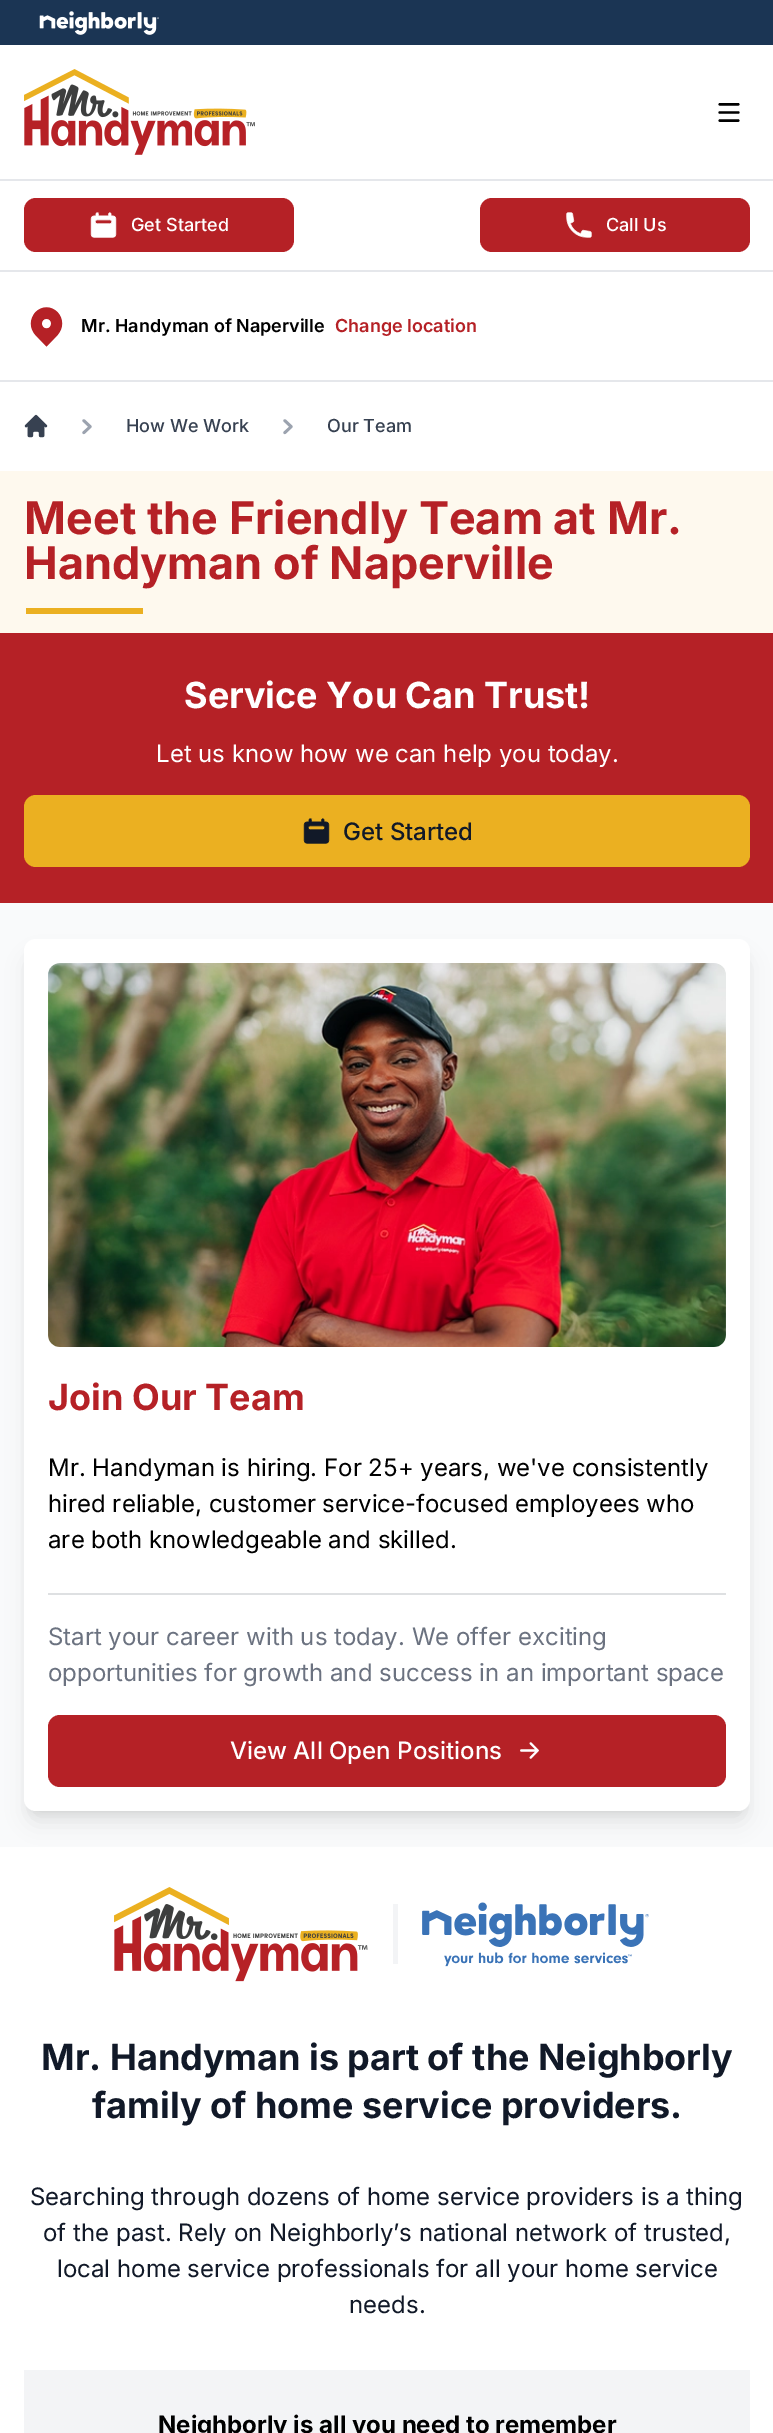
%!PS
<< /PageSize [773 2433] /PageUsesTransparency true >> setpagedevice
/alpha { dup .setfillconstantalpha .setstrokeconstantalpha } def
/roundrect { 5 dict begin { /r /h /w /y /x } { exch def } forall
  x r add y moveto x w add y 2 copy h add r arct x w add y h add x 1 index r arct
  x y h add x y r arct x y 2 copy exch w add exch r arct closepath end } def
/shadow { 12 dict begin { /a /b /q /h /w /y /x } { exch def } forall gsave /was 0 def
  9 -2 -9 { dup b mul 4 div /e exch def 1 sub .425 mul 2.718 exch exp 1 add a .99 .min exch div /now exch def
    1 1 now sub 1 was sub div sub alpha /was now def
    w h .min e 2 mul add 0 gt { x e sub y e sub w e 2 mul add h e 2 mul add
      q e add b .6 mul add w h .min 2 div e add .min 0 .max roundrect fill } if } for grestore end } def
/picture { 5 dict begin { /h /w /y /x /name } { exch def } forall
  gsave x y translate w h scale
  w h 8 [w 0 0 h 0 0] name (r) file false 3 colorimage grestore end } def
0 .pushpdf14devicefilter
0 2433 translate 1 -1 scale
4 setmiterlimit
1 setgray
0 0 773 2433 rectfill
0.106 0.208 0.329 setrgbcolor
0 0 773 45 rectfill
(img1.rgb) 39 11 120 24 picture
(img2.rgb) 24 69 231 86 picture
(img3.rgb) 718 103 22 19 picture
0.898 0.906 0.922 setrgbcolor
0 179 773 2 rectfill
0 270 773 2 rectfill
0.71 0.129 0.149 setrgbcolor
24 198 270 54 12 roundrect fill
(img4.rgb) 90 212 27 26 picture
/Inter-Medium [18 0 0 -18 0 0] selectfont
1 setgray
131 231 moveto (Get Started) show
0.71 0.129 0.149 setrgbcolor
480 198 270 54 12 roundrect fill
(img5.rgb) 566 212 26 26 picture
1 setgray
606 231 moveto (Call Us) show
0.898 0.906 0.922 setrgbcolor
0 380 773 2 rectfill
(img6.rgb) 30 307 33 40 picture
/Inter-SemiBold [18 0 0 -18 0 0] selectfont
0 setgray
81 332 moveto (Mr. Handyman of Naperville) show
0.71 0.129 0.149 setrgbcolor
335 332 moveto (Change location) show
(img7.rgb) 24 414 24 24 picture
(img8.rgb) 82 419 10 16 picture
/Inter-Medium [18 0 0 -18 0 0] selectfont
0.216 0.255 0.318 setrgbcolor
126 432 moveto (How We Work) show
(img8.rgb) 283 419 10 16 picture
327 432 moveto (Our Team) show
0.996 0.976 0.933 setrgbcolor
0 471 773 162 rectfill
/Inter-Bold [45 0 0 -45 0 0] selectfont
0.71 0.129 0.149 setrgbcolor
24 534 moveto (Meet the Friendly Team at Mr.) show
24 579 moveto (Handyman of Naperville) show
0.922 0.69 0.129 setrgbcolor
26 608 117 6 rectfill
0.71 0.129 0.149 setrgbcolor
0 633 773 270 rectfill
/Inter-Bold [36 0 0 -36 0 0] selectfont
1 setgray
184 708 moveto (Service You Can Trust!) show
/Inter-Regular [24 0 0 -24 0 0] selectfont
156 762 moveto (Let us know how we can help you today.) show
0.922 0.69 0.129 setrgbcolor
24 795 726 72 12 roundrect fill
(img9.rgb) 303 818 27 26 picture
/Inter-Medium [24 0 0 -24 0 0] selectfont
0.067 0.098 0.157 setrgbcolor
343 840 moveto (Get Started) show
0.976 0.98 0.984 setrgbcolor
0 903 773 944 rectfill
0 setgray
30 951 714 860 6 4.5 0.1 shadow
29 959 717 862 8 11 0.1 shadow
1 setgray
24 939 726 872 12 roundrect fill
(img10.rgb) 48 963 678 384 picture
/Inter-Bold [36 0 0 -36 0 0] selectfont
0.71 0.129 0.149 setrgbcolor
48 1410 moveto (Join Our Team) show
/Inter-Regular [24 0 0 -24 0 0] selectfont
0 setgray
48 1476 moveto (Mr. Handyman is hiring. For 25+ years, we've consistently) show
48 1512 moveto (hired reliable, customer service-focused employees who) show
48 1548 moveto (are both knowledgeable and skilled.) show
0.871 0.878 0.886 setrgbcolor
48 1593 678 2 rectfill
0.42 0.447 0.502 setrgbcolor
48 1645 moveto (Start your career with us today. We offer exciting) show
48 1681 moveto (opportunities for growth and success in an important space) show
0.71 0.129 0.149 setrgbcolor
48 1715 678 72 12 roundrect fill
/Inter-Medium [24 0 0 -24 0 0] selectfont
1 setgray
230 1759 moveto (View All Open Positions) show
(img11.rgb) 520 1742 19 17 picture
(img12.rgb) 114 1887 254 95 picture
0.953 0.957 0.965 setrgbcolor
393 1904 5 60 rectfill
(img13.rgb) 422 1902 227 65 picture
/Inter-Bold [36 0 0 -36 0 0] selectfont
0.067 0.098 0.157 setrgbcolor
41 2070 moveto (Mr. Handyman is part of the Neighborly) show
92 2118 moveto (family of home service providers.) show
/Inter-Regular [24 0 0 -24 0 0] selectfont
30 2205 moveto (Searching through dozens of home service providers is a thing) show
43 2241 moveto (of the past. Rely on Neighborly’s national network of trusted,) show
57 2277 moveto (local home service professionals for all your home service) show
349 2313 moveto (needs.) show
0.953 0.957 0.965 setrgbcolor
24 2370 726 63 rectfill
/Inter-Bold [24 0 0 -24 0 0] selectfont
0 setgray
158 2433 moveto (Neighborly is all you need to remember) show
.poppdf14devicefilter showpage
